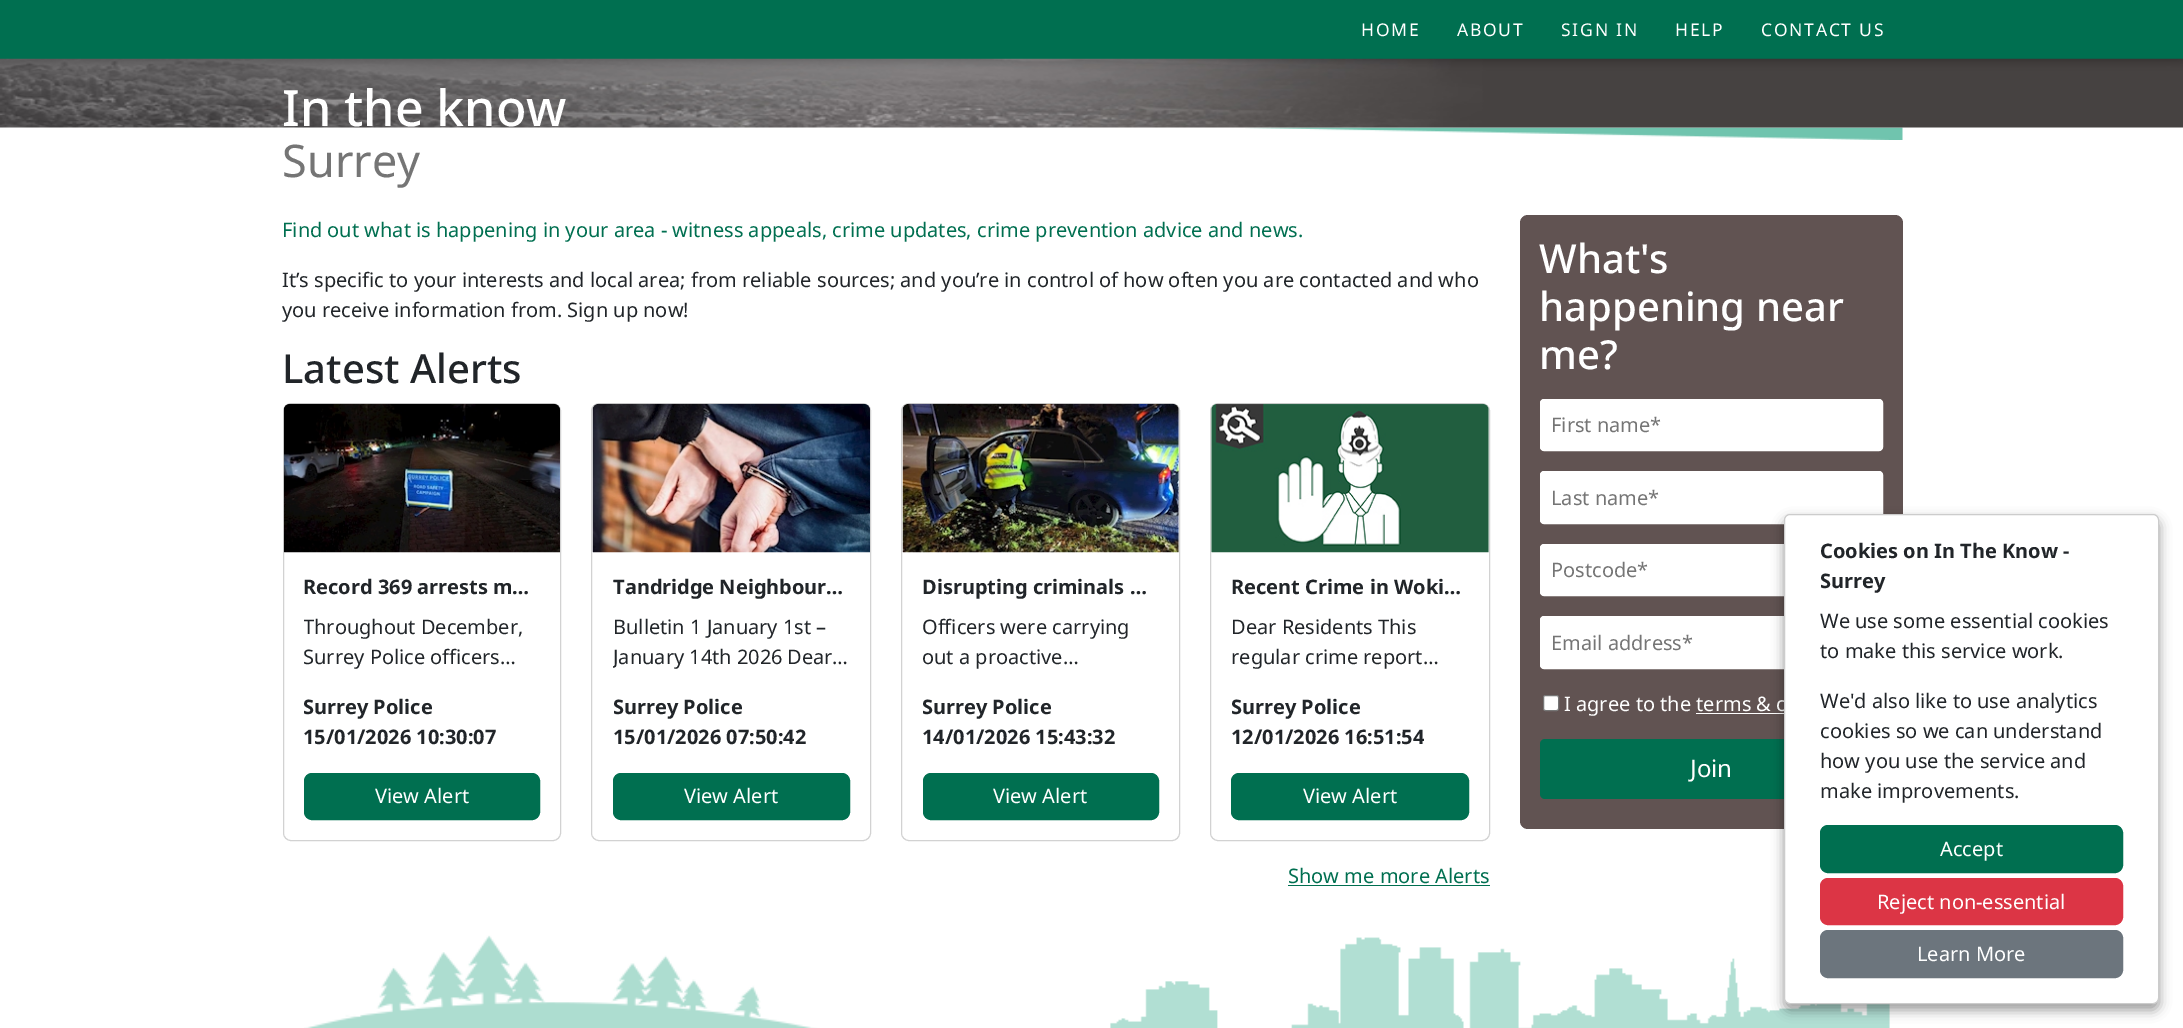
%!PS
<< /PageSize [2183 1028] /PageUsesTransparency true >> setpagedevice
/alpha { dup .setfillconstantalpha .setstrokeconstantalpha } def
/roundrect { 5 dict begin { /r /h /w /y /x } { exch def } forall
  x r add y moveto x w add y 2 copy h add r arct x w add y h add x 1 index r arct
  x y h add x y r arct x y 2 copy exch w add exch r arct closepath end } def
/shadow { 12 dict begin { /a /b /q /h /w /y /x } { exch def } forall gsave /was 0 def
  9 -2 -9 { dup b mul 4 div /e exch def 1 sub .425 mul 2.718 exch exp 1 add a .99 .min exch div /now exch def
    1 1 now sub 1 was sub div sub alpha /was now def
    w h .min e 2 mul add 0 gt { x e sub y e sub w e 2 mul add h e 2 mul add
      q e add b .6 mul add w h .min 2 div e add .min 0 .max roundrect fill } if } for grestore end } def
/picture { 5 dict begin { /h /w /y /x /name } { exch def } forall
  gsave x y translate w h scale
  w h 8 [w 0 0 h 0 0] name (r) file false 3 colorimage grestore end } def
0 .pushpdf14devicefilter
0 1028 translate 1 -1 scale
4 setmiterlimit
1 setgray
0 0 2183 1028 rectfill
0 0.435 0.314 setrgbcolor
0 0 2183 59 rectfill
/NotoSans-Regular [17.5 0 0 -17.5 0 0] selectfont
1 setgray
1361 36 moveto 1.75 0 (HOME) ashow
1457 36 moveto 1.75 0 (ABOUT) ashow
1561 36 moveto 1.75 0 (SIGN IN) ashow
1675 36 moveto 1.75 0 (HELP) ashow
1761 36 moveto 1.75 0 (CONTACT US) ashow
(img2.rgb) 1245 127 658 13 picture
(img1.rgb) 0 58 2183 70 picture
/NotoSans-Medium [50 0 0 -50 0 0] selectfont
282 126 moveto (In the know) show
/NotoSans-Regular [45 0 0 -45 0 0] selectfont
0.459 setgray
282 177 moveto (Surrey) show
/NotoSans-Regular [20 0 0 -20 0 0] selectfont
0 0.435 0.314 setrgbcolor
282 237 moveto (Find out what is happening in your area - witness appeals, crime updates, crime prevention advice and news.) show
0.129 0.145 0.161 setrgbcolor
282 287 moveto (It’s specific to your interests and local area; from reliable sources; and you’re in control of how often you are contacted and who) show
282 317 moveto (you receive information from. Sign up now!) show
/NotoSans-Medium [40 0 0 -40 0 0] selectfont
282 383 moveto (Latest Alerts) show
0.824 setgray
283.5 403.5 277 437 7.5 roundrect stroke
(img3.rgb) 283 403 277 150 picture
/NotoSans-Bold [20 0 0 -20 0 0] selectfont
0.129 0.145 0.161 setrgbcolor
303 594 moveto (Record 369 arrests m…) show
gsave
304 613 236 60 rectclip
/NotoSans-Regular [20 0 0 -20 0 0] selectfont
303 634 moveto (Throughout December,) show
grestore
/NotoSans-Regular [20 0 0 -20 0 0] selectfont
303 664 moveto (Surrey Police officers…) show
/NotoSans-Bold [20 0 0 -20 0 0] selectfont
303 714 moveto (Surrey Police) show
303 744 moveto (15/01/2026 10:30:07) show
0 0.435 0.314 setrgbcolor
304.5 773.5 235 46 7.5 roundrect gsave fill grestore
stroke
/NotoSans-Regular [20 0 0 -20 0 0] selectfont
1 setgray
375 803 moveto (View Alert) show
0.824 setgray
591.5 403.5 279 437 7.5 roundrect stroke
(img4.rgb) 592 403 278 150 picture
/NotoSans-Bold [20 0 0 -20 0 0] selectfont
0.129 0.145 0.161 setrgbcolor
613 594 moveto (Tandridge Neighbour…) show
/NotoSans-Regular [20 0 0 -20 0 0] selectfont
613 634 moveto (Bulletin 1 January 1st –) show
gsave
613 613 237 60 rectclip
613 664 moveto (January 14th 2026) show
grestore
787 664 moveto (Dear…) show
/NotoSans-Bold [20 0 0 -20 0 0] selectfont
613 714 moveto (Surrey Police) show
613 744 moveto (15/01/2026 07:50:42) show
0 0.435 0.314 setrgbcolor
613.5 773.5 236 46 7.5 roundrect gsave fill grestore
stroke
/NotoSans-Regular [20 0 0 -20 0 0] selectfont
1 setgray
684 803 moveto (View Alert) show
0.824 setgray
901.5 403.5 278 437 7.5 roundrect stroke
(img5.rgb) 902 403 277 150 picture
/NotoSans-Bold [20 0 0 -20 0 0] selectfont
0.129 0.145 0.161 setrgbcolor
922 594 moveto (Disrupting criminals …) show
/NotoSans-Regular [20 0 0 -20 0 0] selectfont
922 634 moveto (Officers were carrying) show
922 664 moveto (out a proactive…) show
gsave
923 693 236 30 rectclip
/NotoSans-Bold [20 0 0 -20 0 0] selectfont
922 714 moveto (Surrey Police) show
grestore
/NotoSans-Bold [20 0 0 -20 0 0] selectfont
922 744 moveto (14/01/2026 15:43:32) show
0 0.435 0.314 setrgbcolor
923.5 773.5 235 46 7.5 roundrect gsave fill grestore
stroke
/NotoSans-Regular [20 0 0 -20 0 0] selectfont
1 setgray
993 803 moveto (View Alert) show
0.824 setgray
1210.5 403.5 279 437 7.5 roundrect stroke
(img6.rgb) 1211 403 278 150 picture
/NotoSans-Bold [20 0 0 -20 0 0] selectfont
0.129 0.145 0.161 setrgbcolor
1231 594 moveto (Recent Crime in Woki…) show
/NotoSans-Regular [20 0 0 -20 0 0] selectfont
1231 634 moveto (Dear Residents This) show
1231 664 moveto (regular crime report…) show
/NotoSans-Bold [20 0 0 -20 0 0] selectfont
1231 714 moveto (Surrey Police) show
1231 744 moveto (12/01/2026 16:51:54) show
0 0.435 0.314 setrgbcolor
1231.5 773.5 237 46 7.5 roundrect gsave fill grestore
stroke
/NotoSans-Regular [20 0 0 -20 0 0] selectfont
1 setgray
1303 803 moveto (View Alert) show
0 0.435 0.314 setrgbcolor
1288 883 moveto (Show me more Alerts) show
1288 885 202 1 rectfill
0.38 0.325 0.322 setrgbcolor
1520 215 383 614 8 roundrect fill
/NotoSans-Medium [40 0 0 -40 0 0] selectfont
1 setgray
1539 273 moveto (What's) show
1539 321 moveto (happening near) show
1539 369 moveto (me?) show
1540.5 399.5 342 51 3.5 roundrect gsave fill grestore
stroke
/NotoSans-Regular [20 0 0 -20 0 0] selectfont
0.459 setgray
1551 432 moveto (First name*) show
1 setgray
1540.5 471.5 342 52 3.5 roundrect gsave fill grestore
stroke
0.459 setgray
1551 505 moveto (Last name*) show
1 setgray
1540.5 544.5 342 51 3.5 roundrect gsave fill grestore
stroke
0.459 setgray
1551 577 moveto (Postcode*) show
1 setgray
1540.5 616.5 342 52 3.5 roundrect gsave fill grestore
stroke
0.459 setgray
1551 650 moveto (Email address*) show
1 setgray
1543.5 695.5 15 15 2 roundrect gsave fill grestore
0.463 setgray
stroke
1 setgray
1564 711 moveto (I agree to the terms & c) show
1696 713 88 1 rectfill
0 0.435 0.314 setrgbcolor
1540 739 343 60 5 roundrect fill
/NotoSans-Regular [24 0 0 -24 0 0] selectfont
1 setgray
1690 777 moveto (Join) show
(img7.rgb) 304 935 1586 93 picture
0 setgray
1784 520 375 490 6 6 0.4 shadow
1 setgray
1784.5 514.5 374 489 5.5 roundrect gsave fill grestore
0.8 setgray
stroke
/NotoSans-Bold [20 0 0 -20 0 0] selectfont
0.129 0.145 0.161 setrgbcolor
1820 558 moveto (Cookies on In The Know -) show
1820 588 moveto (Surrey) show
/NotoSans-Regular [20 0 0 -20 0 0] selectfont
1820 628 moveto (We use some essential cookies) show
1820 658 moveto (to make this service work.) show
1820 708 moveto (We'd also like to use analytics) show
1820 738 moveto (cookies so we can understand) show
1820 768 moveto (how you use the service and) show
1820 798 moveto (make improvements.) show
0 0.435 0.314 setrgbcolor
1820.5 825.5 302 47 7.5 roundrect gsave fill grestore
stroke
1 setgray
1940 856 moveto (Accept) show
0.863 0.208 0.271 setrgbcolor
1820.5 878.5 302 46 7.5 roundrect gsave fill grestore
stroke
1 setgray
1877 909 moveto (Reject non-essential) show
0.424 0.459 0.49 setrgbcolor
1820.5 930.5 302 47 7.5 roundrect gsave fill grestore
stroke
1 setgray
1917 961 moveto (Learn More) show
.poppdf14devicefilter showpage
